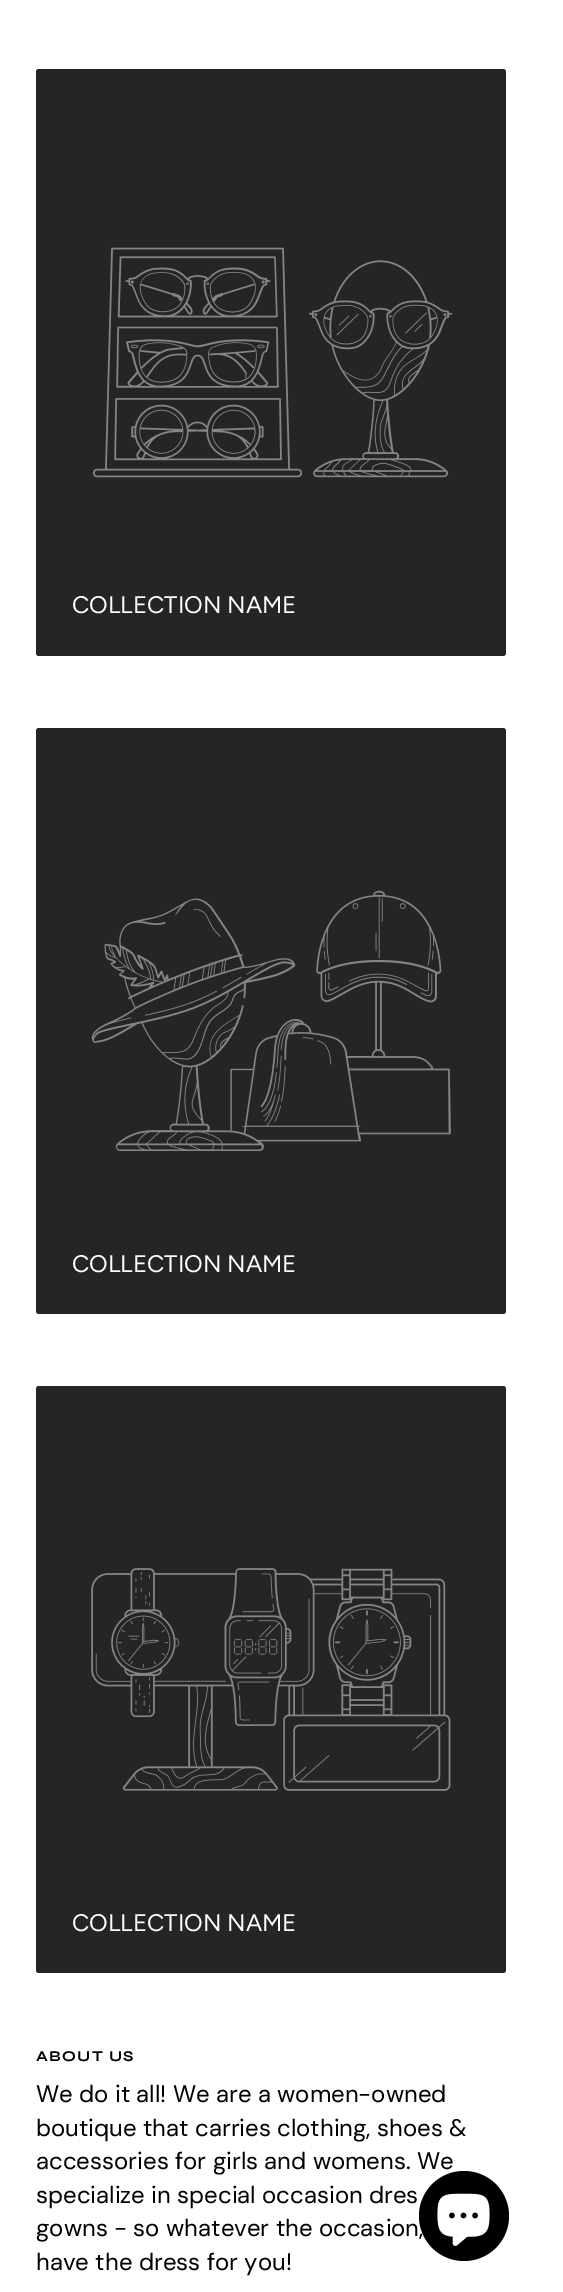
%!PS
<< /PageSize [563 2292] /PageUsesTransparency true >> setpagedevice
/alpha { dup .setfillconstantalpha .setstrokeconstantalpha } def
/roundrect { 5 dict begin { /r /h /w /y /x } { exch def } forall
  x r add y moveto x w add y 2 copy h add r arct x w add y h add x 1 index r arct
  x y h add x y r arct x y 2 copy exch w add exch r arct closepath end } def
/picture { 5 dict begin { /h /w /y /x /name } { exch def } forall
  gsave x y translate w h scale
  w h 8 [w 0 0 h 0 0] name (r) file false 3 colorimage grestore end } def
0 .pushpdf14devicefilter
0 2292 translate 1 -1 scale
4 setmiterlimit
1 setgray
0 0 563 2292 rectfill
0.118 setgray
36 69 470 587 3 roundrect fill
0.04 alpha
1 setgray
36 69 470 587 rectfill
1 alpha
(img1.rgb) 92 247 361 231 picture
0.2 alpha
0.122 setgray
36 69 470 587 3 roundrect fill
/Figtree-Regular [24 0 0 -24 0 0] selectfont
1 alpha
1 setgray
72 613 moveto (COLLECTION NAME) show
0.118 setgray
36 728 470 586 3 roundrect fill
0.04 alpha
1 setgray
36 728 470 586 rectfill
1 alpha
(img2.rgb) 91 890 360 261 picture
0.2 alpha
0.122 setgray
36 728 470 586 3 roundrect fill
1 alpha
1 setgray
72 1272 moveto (COLLECTION NAME) show
0.118 setgray
36 1386 470 587 3 roundrect fill
0.04 alpha
1 setgray
36 1386 470 587 rectfill
1 alpha
(img3.rgb) 91 1568 360 223 picture
0.2 alpha
0.122 setgray
36 1386 470 587 3 roundrect fill
1 alpha
1 setgray
72 1931 moveto (COLLECTION NAME) show
/Syne-Bold [15 0 0 -15 0 0] selectfont
0 setgray
36 2061 moveto 1.25 0 (ABOUT US) ashow
/DMSans-Regular [24 0 0 -24 0 0] selectfont
36 2102 moveto (We do it all! We are a women-owned) show
36 2136 moveto (boutique that carries clothing, shoes &) show
36 2169 moveto (accessories for girls and womens. We) show
36 2203 moveto (specialize in special occasion dres) show
36 2236 moveto (gowns - so whatever the occasion,) show
36 2270 moveto (have the dress for you!) show
newpath 464 2216 45 0 360 arc closepath fill
(img4.rgb) 437 2193 53 53 picture
.poppdf14devicefilter showpage
